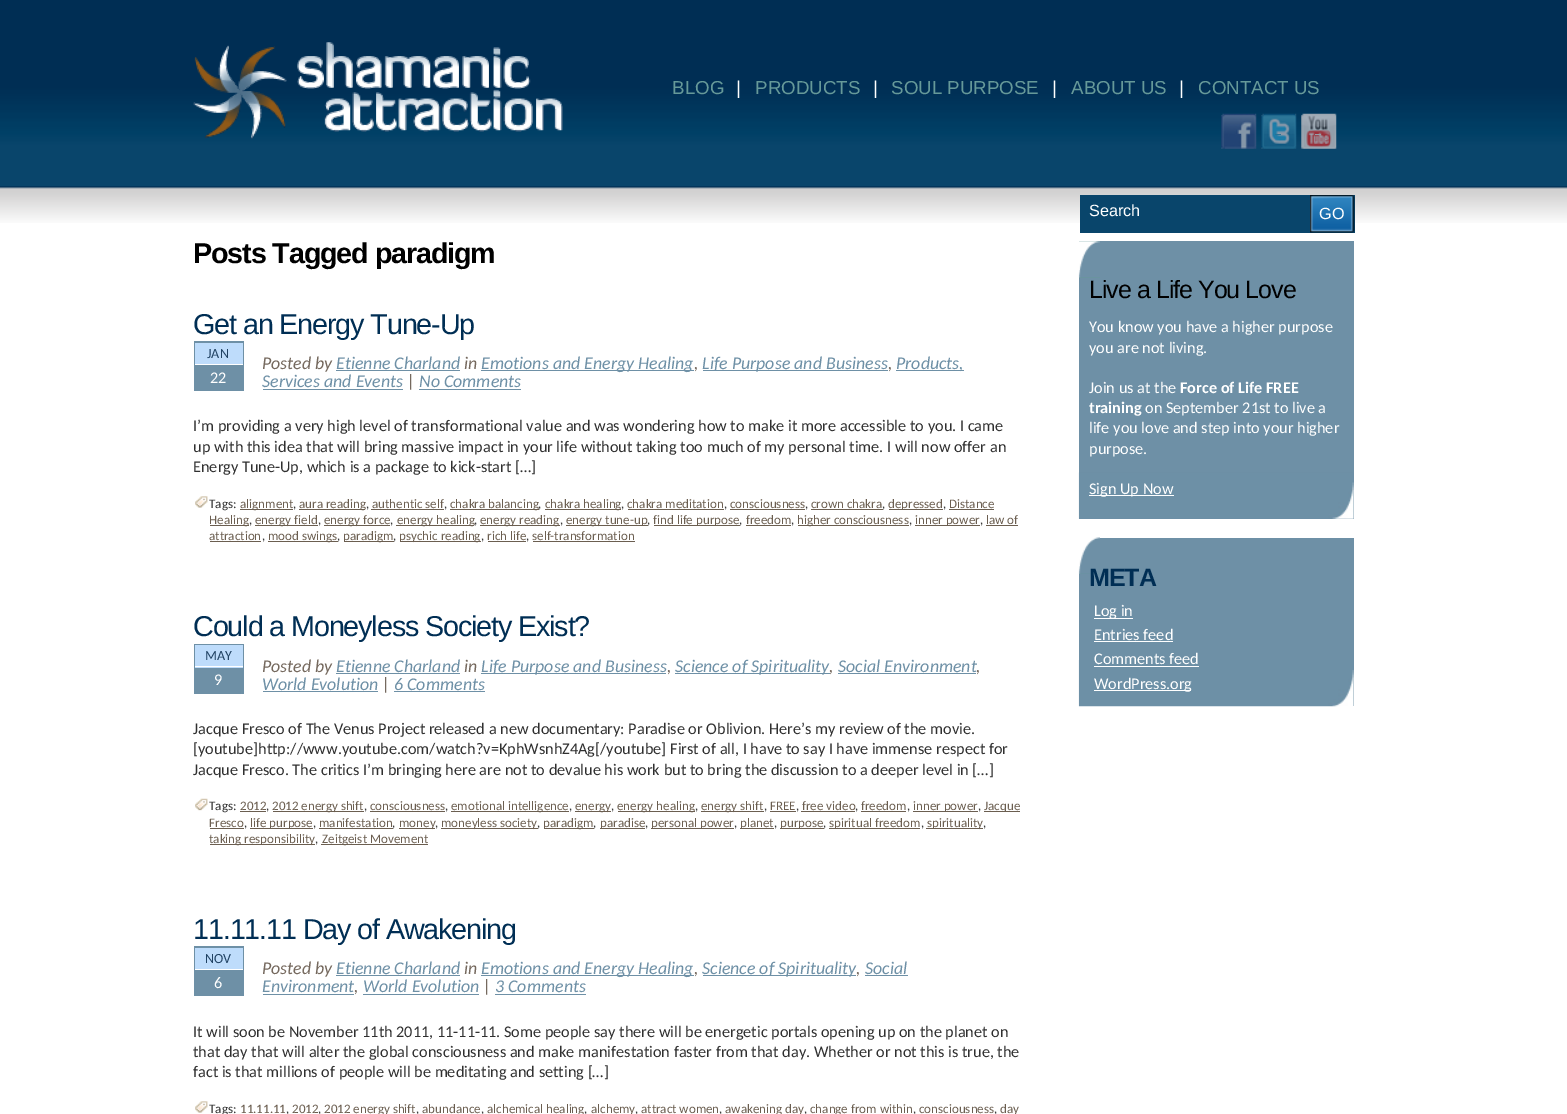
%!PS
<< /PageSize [1567 1114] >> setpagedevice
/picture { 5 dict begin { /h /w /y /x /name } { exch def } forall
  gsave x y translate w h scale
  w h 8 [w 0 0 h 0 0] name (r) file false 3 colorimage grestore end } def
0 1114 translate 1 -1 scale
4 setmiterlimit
1 setgray
0 0 1567 1114 rectfill
(img1.rgb) 0 0 1567 223 picture
/LiberationSans-Regular [18.75 0 0 -18.75 0 0] selectfont
0.4 0.6 0.6 setrgbcolor
672 94 moveto (BLOG) show
1 setgray
736 94 moveto (|) show
0.4 0.6 0.6 setrgbcolor
755 94 moveto (PRODUCTS) show
1 setgray
873 94 moveto (|) show
0.4 0.6 0.6 setrgbcolor
891 94 moveto (SOUL PURPOSE) show
1 setgray
1052 94 moveto (|) show
0.4 0.6 0.6 setrgbcolor
1071 94 moveto (ABOUT US) show
1 setgray
1179 94 moveto (|) show
0.4 0.6 0.6 setrgbcolor
1198 94 moveto (CONTACT US) show
(img2.rgb) 1221 113 36 36 picture
0.141 0.267 0.459 setrgbcolor
1235 134 6 1 rectfill
(img3.rgb) 1261 113 36 36 picture
0.157 0.447 0.584 setrgbcolor
1275 134 6 1 rectfill
(img4.rgb) 1301 113 36 36 picture
0.584 0.627 0.671 setrgbcolor
1315 134 6 1 rectfill
(img5.rgb) 193 42 370 97 picture
(img6.rgb) 193 42 370 97 picture
0.035 0.271 0.42 setrgbcolor
1080 195 275 38 rectfill
(img7.rgb) 1310 195 45 38 picture
/LiberationSans-Regular [16.25 0 0 -16.25 0 0] selectfont
1 setgray
1089 216 moveto (Search) show
1319 219 moveto (GO) show
/LiberationSans-Bold [28.75 0 0 -28.75 0 0] selectfont
0 setgray
193 263 moveto -1.15 0 (Posts Tagged paradigm) ashow
/LiberationSans-Regular [28.75 0 0 -28.75 0 0] selectfont
0 0.18 0.329 setrgbcolor
193 334 moveto -1.15 0 (Get an Energy Tune-Up) ashow
0.431 0.565 0.651 setrgbcolor
194 341 50 50 rectfill
0.745 0.863 0.984 setrgbcolor
195 343 48 21 rectfill
1 setgray
195 364 48 1 rectfill
/Carlito-Regular [14 0 0 -14 0 0] selectfont
0.125 0.259 0.388 setrgbcolor
207 358 moveto (JAN) show
/Carlito-Regular [16.25 0 0 -16.25 0 0] selectfont
1 setgray
210 383 moveto (22) show
/Carlito-Italic [17.9 0 0 -17.9 0 0] selectfont
0.459 0.412 0.369 setrgbcolor
262 369 moveto (Posted by) show
0.431 0.565 0.651 setrgbcolor
336 369 moveto (Etienne Charland) show
336 370 124 1 rectfill
0.459 0.412 0.369 setrgbcolor
464 369 moveto (in) show
0.431 0.565 0.651 setrgbcolor
481 370 213 1 rectfill
481 369 moveto (Emotions and Energy Healing) show
0.459 0.412 0.369 setrgbcolor
694 369 moveto (,) show
0.431 0.565 0.651 setrgbcolor
703 370 185 1 rectfill
702 369 moveto (Life Purpose and Business) show
0.459 0.412 0.369 setrgbcolor
888 369 moveto (,) show
0.431 0.565 0.651 setrgbcolor
896 370 68 1 rectfill
896 369 moveto (Products,) show
262 387 moveto (Services and Events) show
263 389 140 1 rectfill
0.459 0.412 0.369 setrgbcolor
407 387 moveto (|) show
0.431 0.565 0.651 setrgbcolor
419 387 moveto (No Comments) show
419 389 102 1 rectfill
/Carlito-Regular [16.25 0 0 -16.25 0 0] selectfont
0.188 setgray
193 431 moveto (I’m providing a very high level of transformational value and was wondering how to make it more accessible to you. I came) show
193 452 moveto (up with this idea that will bring massive impact in your life without taking too much of my personal time. I will now offer an) show
193 472 moveto (Energy Tune-Up, which is a package to kick-start […]) show
(img8.rgb) 195 496 13 12 picture
/Carlito-Regular [13 0 0 -13 0 0] selectfont
209 508 moveto (Tags:) show
0.42 0.369 0.314 setrgbcolor
240 509 53 1 rectfill
240 508 moveto (alignment) show
0.188 setgray
293 508 moveto (,) show
0.42 0.369 0.314 setrgbcolor
299 509 66 1 rectfill
299 508 moveto (aura reading) show
0.188 setgray
366 508 moveto (,) show
0.42 0.369 0.314 setrgbcolor
372 508 moveto (authentic self) show
371 509 73 1 rectfill
0.188 setgray
444 508 moveto (,) show
0.42 0.369 0.314 setrgbcolor
450 509 89 1 rectfill
450 508 moveto (chakra balancing) show
0.188 setgray
538 508 moveto (,) show
0.42 0.369 0.314 setrgbcolor
545 509 76 1 rectfill
545 508 moveto (chakra healing) show
0.188 setgray
621 508 moveto (,) show
0.42 0.369 0.314 setrgbcolor
627 508 moveto (chakra meditation) show
628 509 96 1 rectfill
0.188 setgray
724 508 moveto (,) show
0.42 0.369 0.314 setrgbcolor
730 508 moveto (consciousness) show
730 509 75 1 rectfill
0.188 setgray
805 508 moveto (,) show
0.42 0.369 0.314 setrgbcolor
811 508 moveto (crown chakra) show
811 509 72 1 rectfill
0.188 setgray
882 508 moveto (,) show
0.42 0.369 0.314 setrgbcolor
889 509 54 1 rectfill
888 508 moveto (depressed) show
0.188 setgray
943 508 moveto (,) show
0.42 0.369 0.314 setrgbcolor
949 508 moveto (Distance) show
949 509 45 1 rectfill
210 525 39 1 rectfill
209 524 moveto (Healing) show
0.188 setgray
249 524 moveto (,) show
0.42 0.369 0.314 setrgbcolor
255 525 63 1 rectfill
255 524 moveto (energy field) show
0.188 setgray
318 524 moveto (,) show
0.42 0.369 0.314 setrgbcolor
324 525 66 1 rectfill
324 524 moveto (energy force) show
0.188 setgray
390 524 moveto (,) show
0.42 0.369 0.314 setrgbcolor
396 525 78 1 rectfill
397 524 moveto (energy healing) show
0.188 setgray
474 524 moveto (,) show
0.42 0.369 0.314 setrgbcolor
480 525 80 1 rectfill
480 524 moveto (energy reading) show
0.188 setgray
560 524 moveto (,) show
0.42 0.369 0.314 setrgbcolor
566 525 82 1 rectfill
566 524 moveto (energy tune-up) show
0.188 setgray
647 524 moveto (,) show
0.42 0.369 0.314 setrgbcolor
654 525 86 1 rectfill
653 524 moveto (find life purpose) show
0.188 setgray
739 524 moveto (,) show
0.42 0.369 0.314 setrgbcolor
746 524 moveto (freedom) show
746 525 45 1 rectfill
0.188 setgray
791 524 moveto (,) show
0.42 0.369 0.314 setrgbcolor
798 525 111 1 rectfill
797 524 moveto (higher consciousness) show
0.188 setgray
909 524 moveto (,) show
0.42 0.369 0.314 setrgbcolor
915 525 65 1 rectfill
915 524 moveto (inner power) show
0.188 setgray
980 524 moveto (,) show
0.42 0.369 0.314 setrgbcolor
986 524 moveto (law of) show
986 525 32 1 rectfill
209 540 moveto (attraction) show
210 541 51 1 rectfill
0.188 setgray
262 540 moveto (,) show
0.42 0.369 0.314 setrgbcolor
268 541 70 1 rectfill
268 540 moveto (mood swings) show
0.188 setgray
337 540 moveto (,) show
0.42 0.369 0.314 setrgbcolor
344 541 50 1 rectfill
343 540 moveto (paradigm) show
0.188 setgray
393 540 moveto (,) show
0.42 0.369 0.314 setrgbcolor
400 541 81 1 rectfill
399 540 moveto (psychic reading) show
0.188 setgray
481 540 moveto (,) show
0.42 0.369 0.314 setrgbcolor
487 540 moveto (rich life) show
488 541 38 1 rectfill
0.188 setgray
526 540 moveto (,) show
0.42 0.369 0.314 setrgbcolor
532 540 moveto (self-transformation) show
533 541 102 1 rectfill
/LiberationSans-Regular [28.75 0 0 -28.75 0 0] selectfont
0 0.18 0.329 setrgbcolor
193 636 moveto -1.15 0 (Could a Moneyless Society Exist?) ashow
0.431 0.565 0.651 setrgbcolor
194 644 50 50 rectfill
0.745 0.863 0.984 setrgbcolor
195 645 48 23 rectfill
1 setgray
195 666 48 1 rectfill
/Carlito-Regular [14 0 0 -14 0 0] selectfont
0.125 0.259 0.388 setrgbcolor
205 660 moveto (MAY) show
/Carlito-Regular [16.25 0 0 -16.25 0 0] selectfont
1 setgray
214 685 moveto (9) show
/Carlito-Italic [17.9 0 0 -17.9 0 0] selectfont
0.459 0.412 0.369 setrgbcolor
262 672 moveto (Posted by) show
0.431 0.565 0.651 setrgbcolor
336 672 moveto (Etienne Charland) show
336 673 124 1 rectfill
0.459 0.412 0.369 setrgbcolor
464 672 moveto (in) show
0.431 0.565 0.651 setrgbcolor
481 673 185 1 rectfill
481 672 moveto (Life Purpose and Business) show
0.459 0.412 0.369 setrgbcolor
667 672 moveto (,) show
0.431 0.565 0.651 setrgbcolor
675 673 155 1 rectfill
675 672 moveto (Science of Spirituality) show
0.459 0.412 0.369 setrgbcolor
829 672 moveto (,) show
0.431 0.565 0.651 setrgbcolor
838 672 moveto (Social Environment) show
838 673 138 1 rectfill
0.459 0.412 0.369 setrgbcolor
976 672 moveto (,) show
0.431 0.565 0.651 setrgbcolor
262 690 moveto (World Evolution) show
263 691 115 1 rectfill
0.459 0.412 0.369 setrgbcolor
382 690 moveto (|) show
0.431 0.565 0.651 setrgbcolor
394 690 moveto (6 Comments) show
394 691 91 1 rectfill
/Carlito-Regular [16.25 0 0 -16.25 0 0] selectfont
0.188 setgray
193 734 moveto (Jacque Fresco of The Venus Project released a new documentary: Paradise or Oblivion. Here’s my review of the movie.) show
193 754 moveto ([youtube]http://www.youtube.com/watch?v=KphWsnhZ4Ag[/youtube] First of all, I have to say I have immense respect for) show
193 775 moveto (Jacque Fresco. The critics I’m bringing here are not to devalue his work but to bring the discussion to a deeper level in […]) show
(img9.rgb) 195 798 13 13 picture
/Carlito-Regular [13 0 0 -13 0 0] selectfont
209 810 moveto (Tags:) show
0.42 0.369 0.314 setrgbcolor
240 810 moveto (2012) show
240 811 26 1 rectfill
0.188 setgray
266 810 moveto (,) show
0.42 0.369 0.314 setrgbcolor
273 811 91 1 rectfill
272 810 moveto (2012 energy shift) show
0.188 setgray
364 810 moveto (,) show
0.42 0.369 0.314 setrgbcolor
370 810 moveto (consciousness) show
370 811 75 1 rectfill
0.188 setgray
445 810 moveto (,) show
0.42 0.369 0.314 setrgbcolor
451 811 118 1 rectfill
451 810 moveto (emotional intelligence) show
0.188 setgray
569 810 moveto (,) show
0.42 0.369 0.314 setrgbcolor
575 811 36 1 rectfill
575 810 moveto (energy) show
0.188 setgray
611 810 moveto (,) show
0.42 0.369 0.314 setrgbcolor
618 811 77 1 rectfill
617 810 moveto (energy healing) show
0.188 setgray
695 810 moveto (,) show
0.42 0.369 0.314 setrgbcolor
701 811 63 1 rectfill
701 810 moveto (energy shift) show
0.188 setgray
764 810 moveto (,) show
0.42 0.369 0.314 setrgbcolor
770 810 moveto (FREE) show
770 811 26 1 rectfill
0.188 setgray
796 810 moveto (,) show
0.42 0.369 0.314 setrgbcolor
802 810 moveto (free video) show
801 811 54 1 rectfill
0.188 setgray
855 810 moveto (,) show
0.42 0.369 0.314 setrgbcolor
861 810 moveto (freedom) show
861 811 45 1 rectfill
0.188 setgray
907 810 moveto (,) show
0.42 0.369 0.314 setrgbcolor
913 811 65 1 rectfill
913 810 moveto (inner power) show
0.188 setgray
978 810 moveto (,) show
0.42 0.369 0.314 setrgbcolor
984 811 36 1 rectfill
984 810 moveto (Jacque) show
209 827 moveto (Fresco) show
210 828 34 1 rectfill
0.188 setgray
244 827 moveto (,) show
0.42 0.369 0.314 setrgbcolor
250 828 63 1 rectfill
250 827 moveto (life purpose) show
0.188 setgray
313 827 moveto (,) show
0.42 0.369 0.314 setrgbcolor
319 827 moveto (manifestation) show
319 828 74 1 rectfill
0.188 setgray
392 827 moveto (,) show
0.42 0.369 0.314 setrgbcolor
399 828 36 1 rectfill
399 827 moveto (money) show
0.188 setgray
435 827 moveto (,) show
0.42 0.369 0.314 setrgbcolor
441 828 97 1 rectfill
441 827 moveto (moneyless society) show
0.188 setgray
537 827 moveto (,) show
0.42 0.369 0.314 setrgbcolor
544 828 50 1 rectfill
543 827 moveto (paradigm) show
0.188 setgray
593 827 moveto (,) show
0.42 0.369 0.314 setrgbcolor
600 828 45 1 rectfill
600 827 moveto (paradise) show
0.188 setgray
645 827 moveto (,) show
0.42 0.369 0.314 setrgbcolor
651 828 83 1 rectfill
651 827 moveto (personal power) show
0.188 setgray
734 827 moveto (,) show
0.42 0.369 0.314 setrgbcolor
740 828 34 1 rectfill
740 827 moveto (planet) show
0.188 setgray
774 827 moveto (,) show
0.42 0.369 0.314 setrgbcolor
780 828 44 1 rectfill
780 827 moveto (purpose) show
0.188 setgray
823 827 moveto (,) show
0.42 0.369 0.314 setrgbcolor
829 828 91 1 rectfill
829 827 moveto (spiritual freedom) show
0.188 setgray
921 827 moveto (,) show
0.42 0.369 0.314 setrgbcolor
926 828 57 1 rectfill
927 827 moveto (spirituality) show
0.188 setgray
983 827 moveto (,) show
0.42 0.369 0.314 setrgbcolor
210 844 105 1 rectfill
209 843 moveto (taking responsibility) show
0.188 setgray
315 843 moveto (,) show
0.42 0.369 0.314 setrgbcolor
321 844 107 1 rectfill
322 843 moveto (Zeitgeist Movement) show
/LiberationSans-Regular [28.75 0 0 -28.75 0 0] selectfont
0 0.18 0.329 setrgbcolor
193 939 moveto -1.15 0 (11.11.11 Day of Awakening) ashow
0.431 0.565 0.651 setrgbcolor
194 946 50 50 rectfill
0.745 0.863 0.984 setrgbcolor
195 948 48 21 rectfill
1 setgray
195 969 48 1 rectfill
/Carlito-Regular [14 0 0 -14 0 0] selectfont
0.125 0.259 0.388 setrgbcolor
205 963 moveto (NOV) show
/Carlito-Regular [16.25 0 0 -16.25 0 0] selectfont
1 setgray
214 988 moveto (6) show
/Carlito-Italic [17.9 0 0 -17.9 0 0] selectfont
0.459 0.412 0.369 setrgbcolor
262 974 moveto (Posted by) show
0.431 0.565 0.651 setrgbcolor
336 974 moveto (Etienne Charland) show
336 975 124 1 rectfill
0.459 0.412 0.369 setrgbcolor
464 974 moveto (in) show
0.431 0.565 0.651 setrgbcolor
481 975 213 1 rectfill
481 974 moveto (Emotions and Energy Healing) show
0.459 0.412 0.369 setrgbcolor
694 974 moveto (,) show
0.431 0.565 0.651 setrgbcolor
703 975 153 1 rectfill
702 974 moveto (Science of Spirituality) show
0.459 0.412 0.369 setrgbcolor
856 974 moveto (,) show
0.431 0.565 0.651 setrgbcolor
865 974 moveto (Social) show
865 975 43 1 rectfill
262 992 moveto (Environment) show
263 994 91 1 rectfill
0.459 0.412 0.369 setrgbcolor
354 992 moveto (,) show
0.431 0.565 0.651 setrgbcolor
363 992 moveto (World Evolution) show
363 994 116 1 rectfill
0.459 0.412 0.369 setrgbcolor
483 992 moveto (|) show
0.431 0.565 0.651 setrgbcolor
495 992 moveto (3 Comments) show
495 994 91 1 rectfill
/Carlito-Regular [16.25 0 0 -16.25 0 0] selectfont
0.188 setgray
193 1037 moveto (It will soon be November 11th 2011, 11-11-11. Some people say there will be energetic portals opening up on the planet on) show
193 1057 moveto (that day that will alter the global consciousness and make manifestation faster from that day. Whether or not this is true, the) show
193 1077 moveto (fact is that millions of people will be meditating and setting […]) show
(img8.rgb) 195 1101 13 12 picture
/Carlito-Regular [13 0 0 -13 0 0] selectfont
209 1113 moveto (Tags:) show
0.42 0.369 0.314 setrgbcolor
240 1113 moveto (11.11.11) show
0.188 setgray
286 1113 moveto (,) show
0.42 0.369 0.314 setrgbcolor
292 1113 moveto (2012) show
0.188 setgray
318 1113 moveto (,) show
0.42 0.369 0.314 setrgbcolor
324 1113 moveto (2012 energy shift) show
0.188 setgray
416 1113 moveto (,) show
0.42 0.369 0.314 setrgbcolor
422 1113 moveto (abundance) show
0.188 setgray
481 1113 moveto (,) show
0.42 0.369 0.314 setrgbcolor
487 1113 moveto (alchemical healing) show
0.188 setgray
584 1113 moveto (,) show
0.42 0.369 0.314 setrgbcolor
591 1113 moveto (alchemy) show
0.188 setgray
635 1113 moveto (,) show
0.42 0.369 0.314 setrgbcolor
641 1113 moveto (attract women) show
0.188 setgray
719 1113 moveto (,) show
0.42 0.369 0.314 setrgbcolor
725 1113 moveto (awakening day) show
0.188 setgray
804 1113 moveto (,) show
0.42 0.369 0.314 setrgbcolor
810 1113 moveto (change from within) show
0.188 setgray
913 1113 moveto (,) show
0.42 0.369 0.314 setrgbcolor
919 1113 moveto (consciousness) show
0.188 setgray
994 1113 moveto (,) show
0.42 0.369 0.314 setrgbcolor
1000 1113 moveto (day) show
0.431 0.565 0.651 setrgbcolor
1079 241 275 278 rectfill
0.4 0.6 0.6 setrgbcolor
1079 241 21 37 rectfill
(img10.rgb) 1078 241 22 37 picture
/LiberationSans-Regular [25 0 0 -25 0 0] selectfont
0 setgray
1089 298 moveto -1 0 (Live a Life You Love) ashow
/Carlito-Regular [16.25 0 0 -16.25 0 0] selectfont
1 setgray
1089 332 moveto (You know you have a higher purpose) show
1089 353 moveto (you are not living.) show
1089 393 moveto (Join us at the) show
/Carlito-Bold [16.25 0 0 -16.25 0 0] selectfont
1180 393 moveto (Force of Life FREE) show
1089 413 moveto (training) show
/Carlito-Regular [16.25 0 0 -16.25 0 0] selectfont
1145 413 moveto (on September 21st to live a) show
1089 433 moveto (life you love and step into your higher) show
1089 454 moveto (purpose.) show
(img11.rgb) 1078 472 276 47 picture
1089 495 85 1 rectfill
1089 494 moveto (Sign Up Now) show
0.431 0.565 0.651 setrgbcolor
1079 538 275 168 rectfill
(img12.rgb) 1078 537 22 37 picture
/LiberationSans-Bold [25 0 0 -25 0 0] selectfont
0 0.18 0.329 setrgbcolor
1089 586 moveto -1 0 (META) ashow
1 setgray
1094 618 39 1 rectfill
/Carlito-Regular [16.25 0 0 -16.25 0 0] selectfont
1094 616 moveto (Log in) show
1094 640 moveto (Entries feed) show
1094 641 79 1 rectfill
(img13.rgb) 1078 660 276 47 picture
1094 664 moveto (Comments feed) show
1094 666 105 1 rectfill
1094 690 97 1 rectfill
1094 689 moveto (WordPress.org) show
showpage
